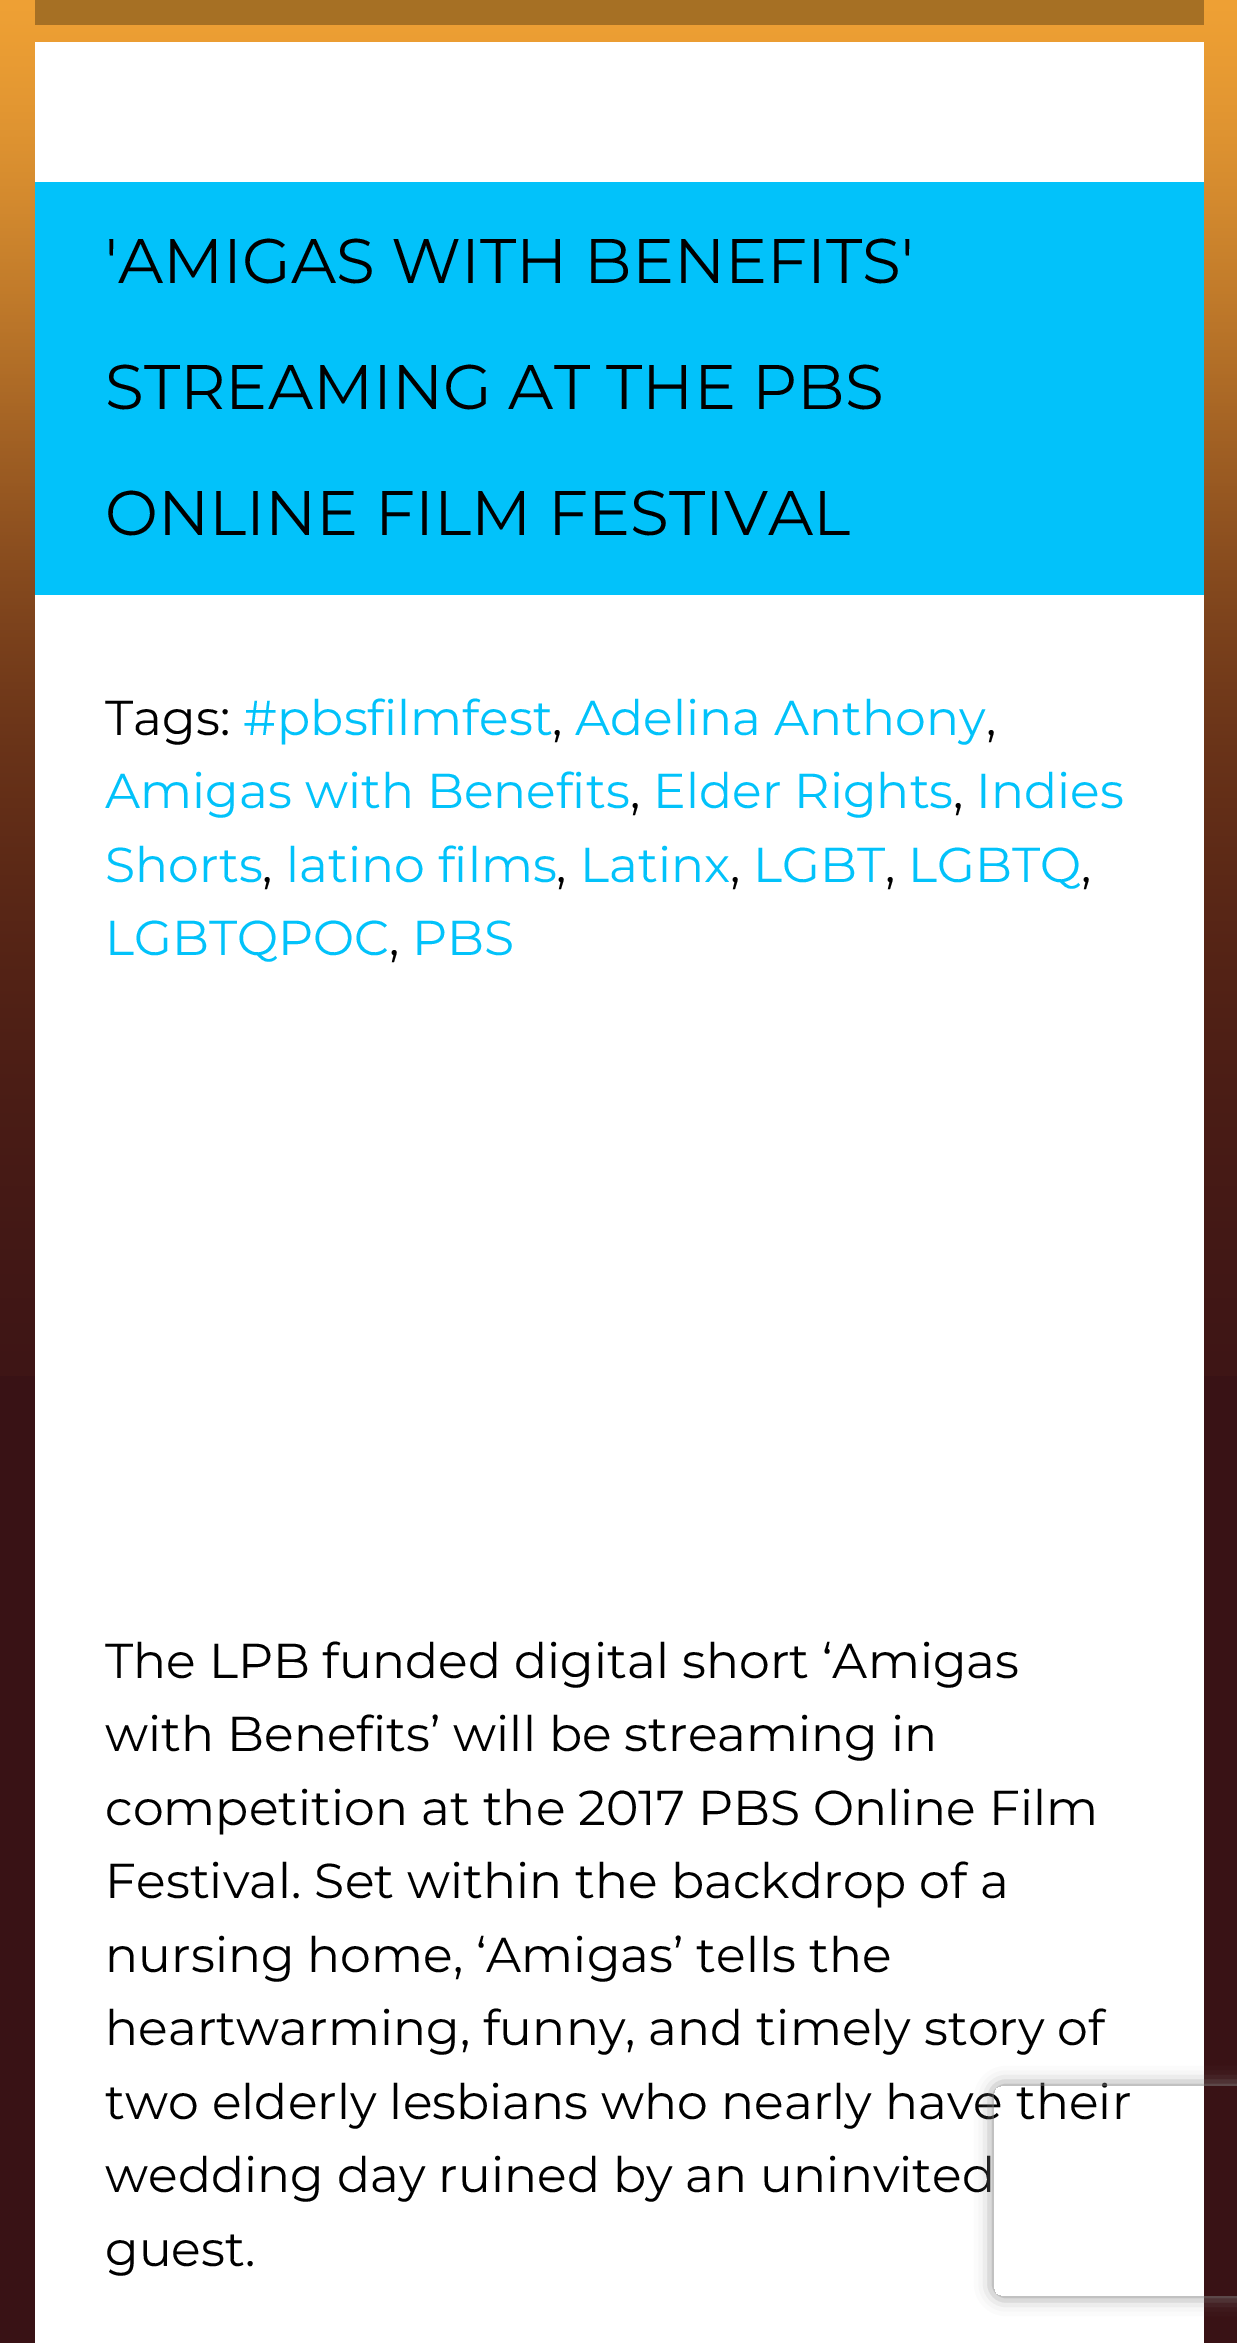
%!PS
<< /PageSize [1237 2343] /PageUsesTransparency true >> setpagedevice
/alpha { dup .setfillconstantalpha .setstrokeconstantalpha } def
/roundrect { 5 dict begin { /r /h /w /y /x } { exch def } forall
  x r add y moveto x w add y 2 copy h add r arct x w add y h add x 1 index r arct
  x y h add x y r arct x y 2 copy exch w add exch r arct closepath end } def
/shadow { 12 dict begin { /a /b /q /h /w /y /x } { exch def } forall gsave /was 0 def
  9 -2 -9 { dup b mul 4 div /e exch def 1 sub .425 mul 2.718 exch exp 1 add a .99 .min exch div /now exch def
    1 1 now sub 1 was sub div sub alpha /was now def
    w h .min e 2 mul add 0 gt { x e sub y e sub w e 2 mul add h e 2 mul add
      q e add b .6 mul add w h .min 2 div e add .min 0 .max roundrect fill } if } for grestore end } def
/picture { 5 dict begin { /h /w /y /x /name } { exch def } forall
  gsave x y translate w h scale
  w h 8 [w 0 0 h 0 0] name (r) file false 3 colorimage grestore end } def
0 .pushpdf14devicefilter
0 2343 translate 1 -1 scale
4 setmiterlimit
0.224 0.071 0.082 setrgbcolor
0 0 1237 2343 rectfill
(img1.rgb) 0 0 1237 1376 picture
0.651 0.439 0.141 setrgbcolor
35 0 1169 25 rectfill
1 setgray
35 42 1169 2301 rectfill
0.008 0.761 0.98 setrgbcolor
35 182 1169 413 rectfill
/Montserrat-Regular [63 0 0 -63 0 0] selectfont
0 setgray
105 283 moveto ('AMIGAS WITH BENEFITS') show
105 409 moveto (STREAMING AT THE PBS) show
105 535 moveto (ONLINE FILM FESTIVAL) show
/Montserrat-Regular [49 0 0 -49 0 0] selectfont
105 735 moveto (Tags:) show
0.008 0.761 0.98 setrgbcolor
243 735 moveto (#pbsfilmfest) show
0 setgray
552 735 moveto (,) show
0.008 0.761 0.98 setrgbcolor
575 735 moveto (Adelina Anthony) show
0 setgray
986 735 moveto (,) show
0.008 0.761 0.98 setrgbcolor
105 808 moveto (Amigas with Benefits) show
0 setgray
630 808 moveto (,) show
0.008 0.761 0.98 setrgbcolor
653 808 moveto (Elder Rights) show
0 setgray
953 808 moveto (,) show
0.008 0.761 0.98 setrgbcolor
976 808 moveto (Indies) show
105 882 moveto (Shorts) show
0 setgray
262 882 moveto (,) show
0.008 0.761 0.98 setrgbcolor
286 882 moveto (latino films) show
0 setgray
556 882 moveto (,) show
0.008 0.761 0.98 setrgbcolor
580 882 moveto (Latinx) show
0 setgray
730 882 moveto (,) show
0.008 0.761 0.98 setrgbcolor
753 882 moveto (LGBT) show
0 setgray
885 882 moveto (,) show
0.008 0.761 0.98 setrgbcolor
908 882 moveto (LGBTQ) show
0 setgray
1081 882 moveto (,) show
0.008 0.761 0.98 setrgbcolor
105 955 moveto (LGBTQPOC) show
0 setgray
389 955 moveto (,) show
0.008 0.761 0.98 setrgbcolor
412 955 moveto (PBS) show
0 setgray
105 1678 moveto (The LPB funded digital short ‘Amigas) show
105 1751 moveto (with Benefits’ will be streaming in) show
105 1825 moveto (competition at the 2017 PBS Online Film) show
105 1898 moveto (Festival. Set within the backdrop of a) show
105 1972 moveto (nursing home, ‘Amigas’ tells the) show
105 2045 moveto (heartwarming, funny, and timely story of) show
105 2119 moveto (two elderly lesbians who nearly have their) show
105 2192 moveto (wedding day ruined by an uninvited) show
105 2266 moveto (guest.) show
gsave
newpath 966 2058 moveto 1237 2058 lineto 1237 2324 lineto 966 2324 lineto closepath 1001 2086 moveto 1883 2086 lineto 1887 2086 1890 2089 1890 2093 curveto 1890 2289 lineto 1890 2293 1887 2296 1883 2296 curveto 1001 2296 lineto 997 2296 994 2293 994 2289 curveto 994 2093 lineto 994 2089 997 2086 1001 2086 curveto closepath eoclip newpath
0.502 setgray
994 2086 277 210 7 9 1 shadow
grestore
.poppdf14devicefilter showpage
